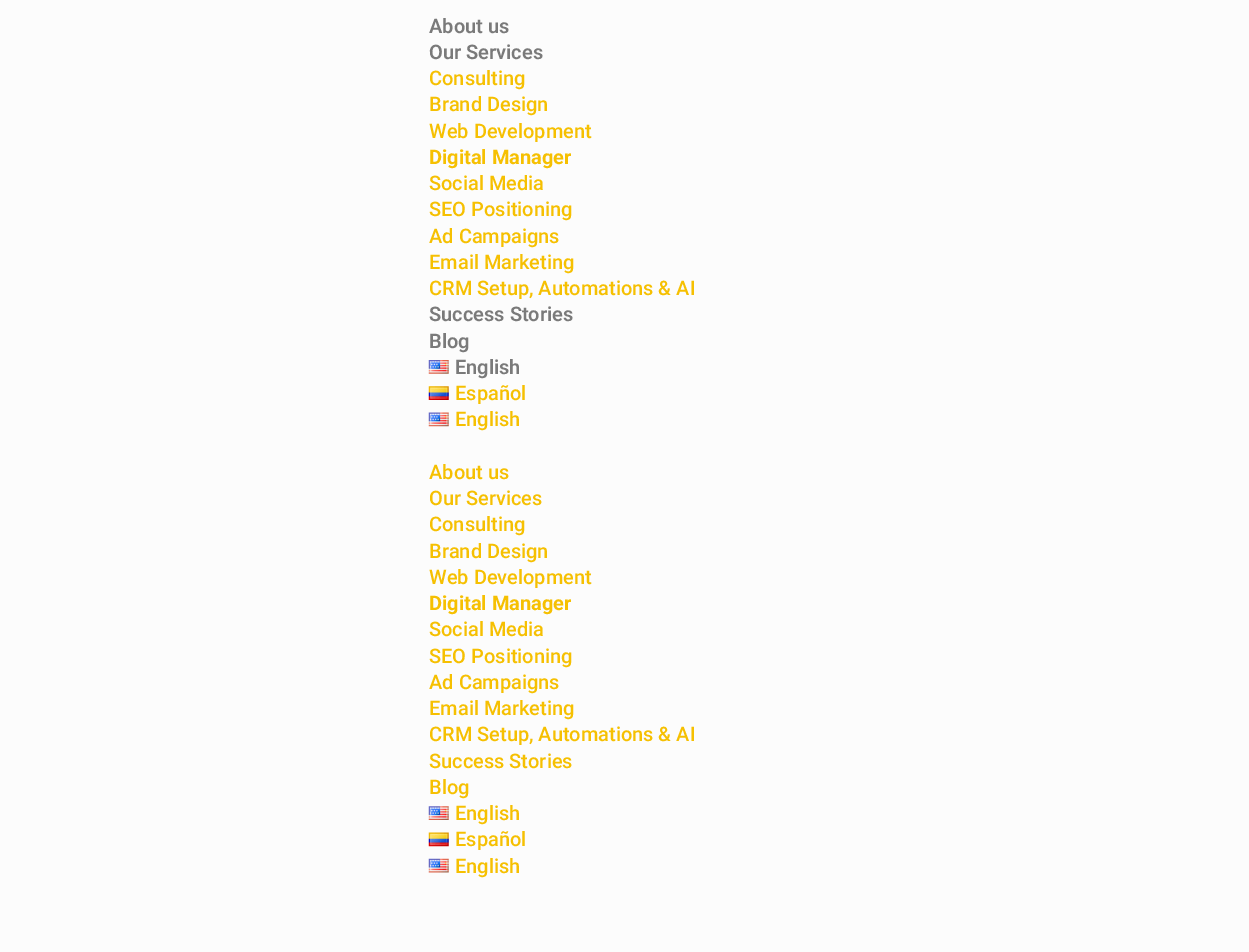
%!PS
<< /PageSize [1249 952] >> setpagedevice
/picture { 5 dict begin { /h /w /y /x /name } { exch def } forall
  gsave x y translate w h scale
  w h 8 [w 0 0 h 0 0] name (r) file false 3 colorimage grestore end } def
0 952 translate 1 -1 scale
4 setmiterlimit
0.988 setgray
0 0 1249 952 rectfill
/Roboto-SemiBold [20 0 0 -20 0 0] selectfont
0.478 setgray
429 33 moveto (About us) show
429 59 moveto (Our Services) show
/Roboto-Medium [20 0 0 -20 0 0] selectfont
0.965 0.753 0.004 setrgbcolor
429 85 moveto (Consulting) show
429 111 moveto (Brand Design) show
429 138 moveto (Web Development) show
/Roboto-Bold [20 0 0 -20 0 0] selectfont
429 164 moveto (Digital Manager) show
/Roboto-Medium [20 0 0 -20 0 0] selectfont
429 190 moveto (Social Media) show
429 216 moveto (SEO Positioning) show
429 243 moveto (Ad Campaigns) show
429 269 moveto (Email Marketing) show
429 295 moveto (CRM Setup, Automations & AI) show
/Roboto-SemiBold [20 0 0 -20 0 0] selectfont
0.478 setgray
429 321 moveto (Success Stories) show
429 348 moveto (Blog) show
(img1.rgb) 428 360 21 14 picture
455 374 moveto (English) show
(img2.rgb) 428 386 21 14 picture
/Roboto-Medium [20 0 0 -20 0 0] selectfont
0.965 0.753 0.004 setrgbcolor
455 400 moveto (Español) show
(img3.rgb) 428 412 21 15 picture
455 426 moveto (English) show
429 479 moveto (About us) show
429 505 moveto (Our Services) show
429 531 moveto (Consulting) show
429 558 moveto (Brand Design) show
429 584 moveto (Web Development) show
/Roboto-Bold [20 0 0 -20 0 0] selectfont
429 610 moveto (Digital Manager) show
/Roboto-Medium [20 0 0 -20 0 0] selectfont
429 636 moveto (Social Media) show
429 663 moveto (SEO Positioning) show
429 689 moveto (Ad Campaigns) show
429 715 moveto (Email Marketing) show
429 741 moveto (CRM Setup, Automations & AI) show
429 768 moveto (Success Stories) show
429 794 moveto (Blog) show
(img4.rgb) 428 806 21 14 picture
455 820 moveto (English) show
(img5.rgb) 428 832 21 15 picture
455 846 moveto (Español) show
(img6.rgb) 428 858 21 15 picture
455 873 moveto (English) show
showpage
